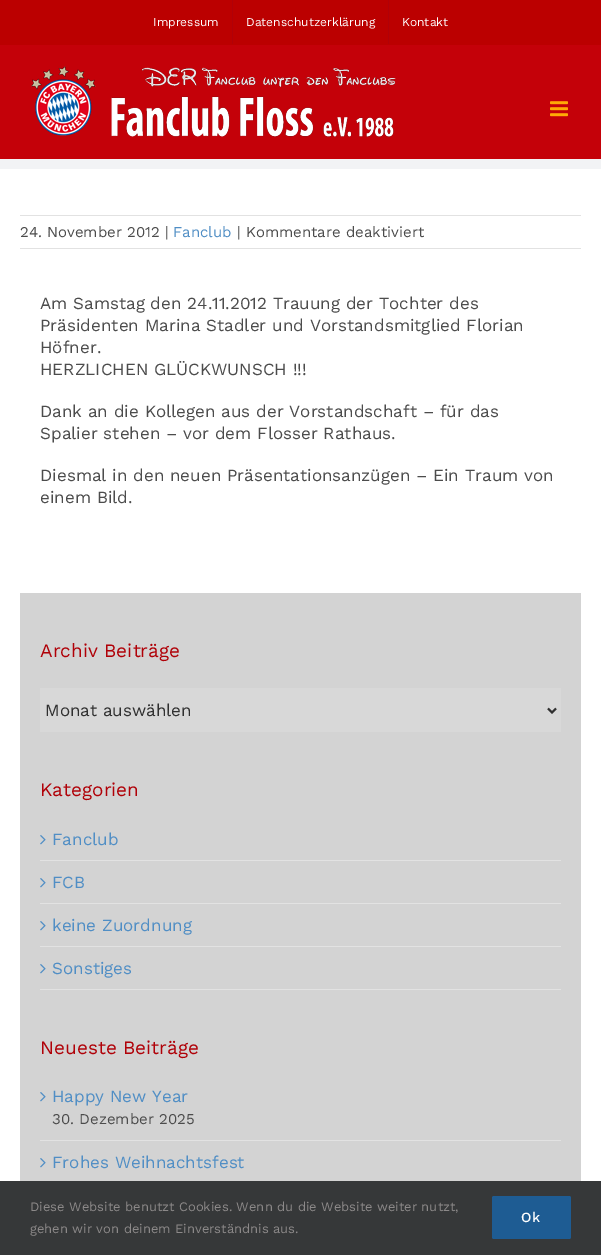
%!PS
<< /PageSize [601 1255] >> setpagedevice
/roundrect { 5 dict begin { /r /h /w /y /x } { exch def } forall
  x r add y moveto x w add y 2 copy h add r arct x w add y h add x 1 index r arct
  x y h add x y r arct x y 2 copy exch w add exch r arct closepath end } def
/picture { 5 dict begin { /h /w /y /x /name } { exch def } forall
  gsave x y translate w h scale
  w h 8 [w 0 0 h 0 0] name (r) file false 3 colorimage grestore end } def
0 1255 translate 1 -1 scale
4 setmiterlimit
0.949 0.953 0.961 setrgbcolor
0 0 601 1255 rectfill
0.733 0 0 setrgbcolor
0 0 601 45 rectfill
/WorkSans-Regular [12 0 0 -12 0 0] selectfont
1 setgray
153 26 moveto (Impressum) show
0.69 0.004 0.031 setrgbcolor
232 0 1 44 rectfill
1 setgray
246 26 moveto (Datenschutzerklärung) show
0.69 0.004 0.031 setrgbcolor
388 0 1 44 rectfill
1 setgray
402 26 moveto (Kontakt) show
0.769 0.004 0.035 setrgbcolor
0 45 601 114 rectfill
(img1.rgb) 31 66 365 71 picture
(img2.rgb) 550 101 18 16 picture
1 setgray
0 169 601 1012 rectfill
0.886 setgray
20 215 561 1 rectfill
20 248 561 1 rectfill
/WorkSans-Regular [15 0 0 -15 0 0] selectfont
0.298 setgray
20 237 moveto (24. November 2012 |) show
0.314 0.557 0.773 setrgbcolor
173 237 moveto (Fanclub) show
0.298 setgray
237 237 moveto (| Kommentare deaktiviert) show
/WorkSans-Regular [17 0 0 -17 0 0] selectfont
40 309 moveto (Am Samstag den 24.11.2012 Trauung der Tochter des) show
40 331 moveto (Präsidenten Marina Stadler und Vorstandsmitglied Florian) show
40 353 moveto (Höfner.) show
40 375 moveto (HERZLICHEN GLÜCKWUNSCH !!!) show
40 417 moveto (Dank an die Kollegen aus der Vorstandschaft – für das) show
40 439 moveto (Spalier stehen – vor dem Flosser Rathaus.) show
40 481 moveto (Diesmal in den neuen Präsentationsanzügen – Ein Traum von) show
40 503 moveto (einem Bild.) show
0.827 setgray
20 593 561 588 rectfill
/WorkSans-Regular [19 0 0 -19 0 0] selectfont
0.69 0.004 0.031 setrgbcolor
40 657 moveto (Archiv Beiträge) show
0.847 setgray
40 688 521 44 rectfill
0.188 setgray
2 setlinewidth
newpath 548 708.5 moveto 552 712.5 lineto 556 708.5 lineto stroke
/WorkSans-Regular [17 0 0 -17 0 0] selectfont
45 716 moveto (Monat auswählen) show
/WorkSans-Regular [19 0 0 -19 0 0] selectfont
0.69 0.004 0.031 setrgbcolor
40 796 moveto (Kategorien) show
0.886 setgray
40 860 521 1 rectfill
(img3.rgb) 40 835 6 10 picture
/WorkSans-Regular [17 0 0 -17 0 0] selectfont
0.314 0.557 0.773 setrgbcolor
52 845 moveto (Fanclub) show
0.886 setgray
40 903 521 1 rectfill
(img3.rgb) 40 878 6 10 picture
0.314 0.557 0.773 setrgbcolor
52 888 moveto (FCB) show
0.886 setgray
40 946 521 1 rectfill
(img3.rgb) 40 921 6 10 picture
0.314 0.557 0.773 setrgbcolor
52 931 moveto (keine Zuordnung) show
0.886 setgray
40 989 521 1 rectfill
(img3.rgb) 40 964 6 10 picture
0.314 0.557 0.773 setrgbcolor
52 974 moveto (Sonstiges) show
/WorkSans-Regular [19 0 0 -19 0 0] selectfont
0.69 0.004 0.031 setrgbcolor
40 1054 moveto (Neueste Beiträge) show
0.886 setgray
40 1140 521 1 rectfill
(img3.rgb) 40 1092 6 10 picture
/WorkSans-Regular [17 0 0 -17 0 0] selectfont
0.314 0.557 0.773 setrgbcolor
52 1102 moveto (Happy New Year) show
/WorkSans-Regular [15 0 0 -15 0 0] selectfont
0.298 setgray
52 1124 moveto (30. Dezember 2025) show
(img3.rgb) 40 1158 6 10 picture
/WorkSans-Regular [17 0 0 -17 0 0] selectfont
0.314 0.557 0.773 setrgbcolor
52 1168 moveto (Frohes Weihnachtsfest) show
0.212 0.22 0.224 setrgbcolor
0 1181 601 74 rectfill
/WorkSans-Regular [13 0 0 -13 0 0] selectfont
0.549 0.537 0.537 setrgbcolor
30 1211 moveto (Diese Website benutzt Cookies. Wenn du die Website weiter nutzt,) show
30 1233 moveto (gehen wir von deinem Einverständnis aus.) show
0.118 0.361 0.576 setrgbcolor
492 1196 79 43 2 roundrect fill
/WorkSans-Medium [14 0 0 -14 0 0] selectfont
1 setgray
521 1222 moveto 1 0 (Ok) ashow
showpage
